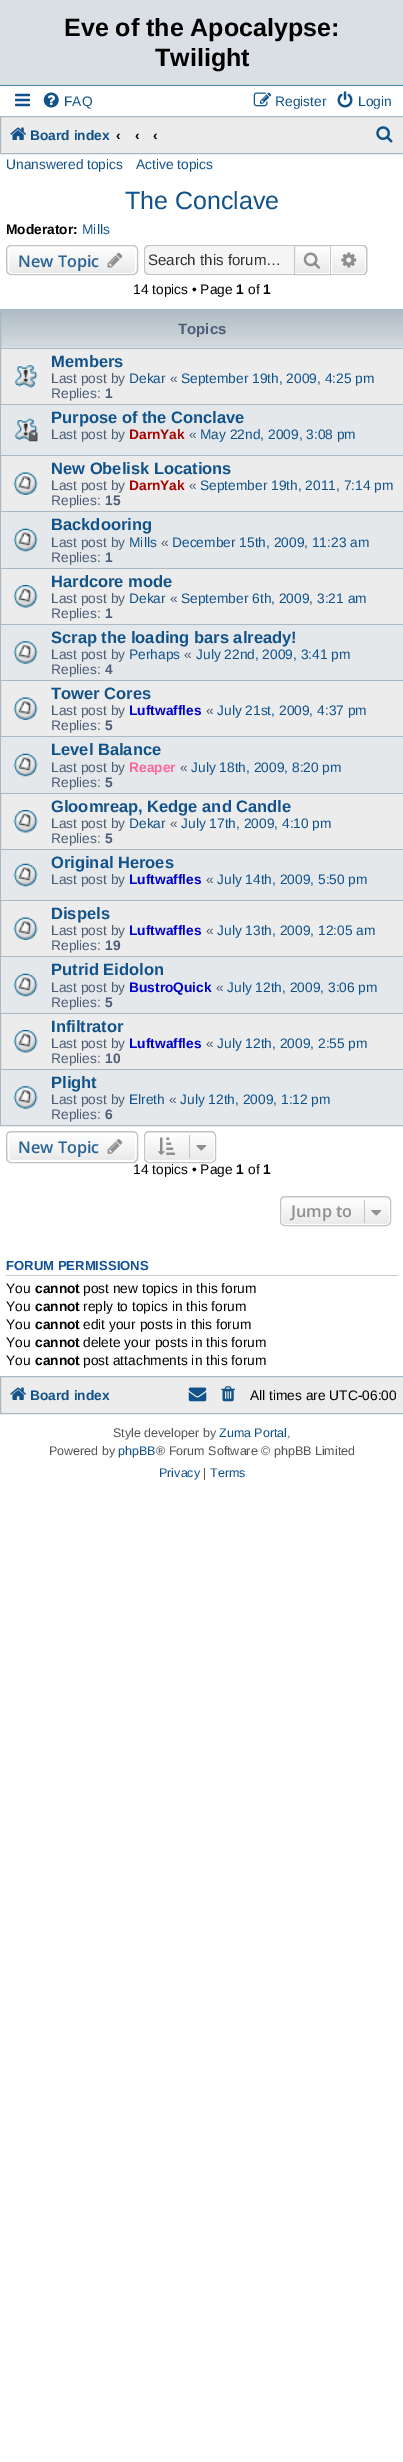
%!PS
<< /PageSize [403 2462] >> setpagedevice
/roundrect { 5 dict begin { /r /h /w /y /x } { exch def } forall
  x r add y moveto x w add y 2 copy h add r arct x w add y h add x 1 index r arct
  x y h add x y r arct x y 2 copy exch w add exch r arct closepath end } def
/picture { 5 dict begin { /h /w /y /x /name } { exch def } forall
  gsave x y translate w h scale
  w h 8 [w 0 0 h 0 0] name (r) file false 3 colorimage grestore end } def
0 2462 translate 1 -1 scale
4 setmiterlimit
1 setgray
0 0 403 2462 rectfill
0.851 0.875 0.894 setrgbcolor
0 0 403 85 rectfill
0.278 0.529 0.655 setrgbcolor
0 85 403 1 rectfill
/LiberationSans-Bold [25 0 0 -25 0 0] selectfont
0 setgray
64 36 moveto (Eve of the Apocalypse:) show
155 66 moveto (Twilight) show
(img1.rgb) 15 93 15 14 picture
(img2.rgb) 43 92 16 16 picture
/LiberationSans-Regular [13.75 0 0 -13.75 0 0] selectfont
0.063 0.322 0.537 setrgbcolor
64 106 moveto (FAQ) show
(img3.rgb) 253 92 19 15 picture
275 106 moveto (Register) show
(img4.rgb) 337 91 16 17 picture
358 106 moveto (Login) show
0.925 setgray
newpath 0.5 116.5 moveto 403.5 116.5 lineto 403.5 153.5 lineto 0.5 153.5 lineto closepath gsave fill grestore
0.663 0.722 0.761 setrgbcolor
stroke
(img5.rgb) 10 127 16 13 picture
/LiberationSans-Bold [13.75 0 0 -13.75 0 0] selectfont
0.063 0.322 0.537 setrgbcolor
30 140 moveto (Board index) show
0 setgray
116 140 moveto (‹) show
135 140 moveto (‹) show
153 140 moveto (‹) show
(img6.rgb) 376 126 17 17 picture
/LiberationSans-Regular [13.75 0 0 -13.75 0 0] selectfont
0.063 0.322 0.537 setrgbcolor
6 169 moveto (Unanswered topics) show
136 169 moveto (Active topics) show
/LiberationSans-Regular [25 0 0 -25 0 0] selectfont
125 209 moveto (The Conclave) show
/LiberationSans-Bold [13.75 0 0 -13.75 0 0] selectfont
0 setgray
6 234 moveto (Moderator:) show
/LiberationSans-Regular [13.75 0 0 -13.75 0 0] selectfont
0.063 0.322 0.537 setrgbcolor
82 234 moveto (Mills) show
gsave
6 245 132 30 5 roundrect clip newpath
gsave newpath 6 246 moveto 138 246 lineto 138 274 lineto 6 274 lineto closepath clip newpath
<< /ShadingType 2 /ColorSpace /DeviceRGB /Coords [72 246 72 274] /Extend [true true] /Function << /FunctionType 2 /Domain [0 1] /C0 [1 1 1] /C1 [0.914 0.914 0.914] /N 1 >> >> shfill grestore
grestore
1 setgray
8.5 246.5 127 27 3.5 roundrect stroke
0.78 0.765 0.749 setrgbcolor
6.5 245.5 131 29 4.5 roundrect stroke
/OpenSans-SemiBold [16.25 0 0 -16.25 0 0] selectfont
0.165 0.392 0.588 setrgbcolor
18 267 moveto (New Topic) show
(img7.rgb) 107 252 16 16 picture
0.961 setgray
newpath 149 246 moveto 294 246 lineto 294 274 lineto 149 274 lineto 147 274 145 272 145 270 curveto 145 250 lineto 145 248 147 246 149 246 curveto closepath fill
0.78 0.765 0.749 setrgbcolor
newpath 149 245 moveto 294 245 lineto 294 275 lineto 149 275 lineto 146 275 144 273 144 270 curveto 144 250 lineto 144 247 146 245 149 245 curveto closepath 149 246 moveto 294 246 lineto 294 274 lineto 149 274 lineto 147 274 145 272 145 270 curveto 145 250 lineto 145 248 147 246 149 246 curveto closepath eofill
/LiberationSans-Regular [15.1 0 0 -15.1 0 0] selectfont
0.2 setgray
148 265 moveto (Search this forum…) show
gsave newpath 296 249 moveto 329 249 lineto 329 273 lineto 296 273 lineto closepath clip newpath
<< /ShadingType 2 /ColorSpace /DeviceRGB /Coords [313 246 313 274] /Extend [true true] /Function << /FunctionType 2 /Domain [0 1] /C0 [1 1 1] /C1 [0.914 0.914 0.914] /N 1 >> >> shfill grestore
0.78 0.765 0.749 setrgbcolor
294.5 245.5 36 29 rectstroke
(img8.rgb) 303 252 17 17 picture
gsave newpath 331.5 246.5 moveto 362 246.5 lineto 364 246.5 365.5 248 365.5 250 curveto 365.5 270 lineto 365.5 272 364 273.5 362 273.5 curveto 331.5 273.5 lineto closepath clip newpath
<< /ShadingType 2 /ColorSpace /DeviceRGB /Coords [349 246 349 274] /Extend [true true] /Function << /FunctionType 2 /Domain [0 1] /C0 [1 1 1] /C1 [0.914 0.914 0.914] /N 1 >> >> shfill grestore
1 setgray
newpath 331.5 246.5 moveto 362 246.5 lineto 364 246.5 365.5 248 365.5 250 curveto 365.5 270 lineto 365.5 272 364 273.5 362 273.5 curveto 331.5 273.5 lineto closepath stroke
0.78 0.765 0.749 setrgbcolor
newpath 331 245 moveto 362.5 245 lineto 365.5 245 367.5 247 367.5 250 curveto 367.5 270 lineto 367.5 273 365.5 275 362.5 275 curveto 331 275 lineto closepath 331 246 moveto 362.5 246 lineto 364.5 246 366 248 366 250 curveto 366 270 lineto 366 272 364.5 274 362.5 274 curveto 331 274 lineto closepath eofill
(img9.rgb) 341 252 16 16 picture
/LiberationSans-Regular [13.75 0 0 -13.75 0 0] selectfont
0 setgray
133 294 moveto (14 topics • Page) show
/LiberationSans-Bold [13.75 0 0 -13.75 0 0] selectfont
236 294 moveto (1) show
/LiberationSans-Regular [13.75 0 0 -13.75 0 0] selectfont
248 294 moveto (of) show
/LiberationSans-Bold [13.75 0 0 -13.75 0 0] selectfont
263 294 moveto (1) show
0.925 setgray
1 347 402 722 rectfill
(img10.rgb) 1 310 402 38 picture
0.663 0.722 0.761 setrgbcolor
0.5 309.5 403 816 rectstroke
/LiberationSans-Bold [15 0 0 -15 0 0] selectfont
0.298 0.365 0.467 setrgbcolor
178 334 moveto (Topics) show
0.663 0.722 0.761 setrgbcolor
1 348 402 1 rectfill
(img11.rgb) 14 365 24 23 picture
/LiberationSans-Bold [16.5 0 0 -16.5 0 0] selectfont
0.063 0.322 0.537 setrgbcolor
51 367 moveto (Members) show
/LiberationSans-Regular [13.75 0 0 -13.75 0 0] selectfont
0.298 0.365 0.467 setrgbcolor
51 383 moveto (Last post by) show
0.063 0.322 0.537 setrgbcolor
129 383 moveto (Dekar) show
0.298 0.365 0.467 setrgbcolor
170 383 moveto («) show
0.063 0.322 0.537 setrgbcolor
181 383 moveto (September 19th, 2009, 4:25 pm) show
0.298 0.365 0.467 setrgbcolor
51 398 moveto (Replies:) show
/LiberationSans-Bold [13.75 0 0 -13.75 0 0] selectfont
105 398 moveto (1) show
0.898 0.91 0.918 setrgbcolor
1 405 402 50 rectfill
0.663 0.722 0.761 setrgbcolor
1 404 402 1 rectfill
(img12.rgb) 14 418 24 24 picture
/LiberationSans-Bold [16.5 0 0 -16.5 0 0] selectfont
0.063 0.322 0.537 setrgbcolor
51 423 moveto (Purpose of the Conclave) show
/LiberationSans-Regular [13.75 0 0 -13.75 0 0] selectfont
0.298 0.365 0.467 setrgbcolor
51 439 moveto (Last post by) show
/LiberationSans-Bold [13.75 0 0 -13.75 0 0] selectfont
0.667 0 0 setrgbcolor
129 439 moveto (DarnYak) show
/LiberationSans-Regular [13.75 0 0 -13.75 0 0] selectfont
0.298 0.365 0.467 setrgbcolor
189 439 moveto («) show
0.063 0.322 0.537 setrgbcolor
200 439 moveto (May 22nd, 2009, 3:08 pm) show
0.663 0.722 0.761 setrgbcolor
1 455 402 1 rectfill
(img13.rgb) 13 472 25 23 picture
/LiberationSans-Bold [16.5 0 0 -16.5 0 0] selectfont
0.063 0.322 0.537 setrgbcolor
51 474 moveto (New Obelisk Locations) show
/LiberationSans-Regular [13.75 0 0 -13.75 0 0] selectfont
0.298 0.365 0.467 setrgbcolor
51 490 moveto (Last post by) show
/LiberationSans-Bold [13.75 0 0 -13.75 0 0] selectfont
0.667 0 0 setrgbcolor
129 490 moveto (DarnYak) show
/LiberationSans-Regular [13.75 0 0 -13.75 0 0] selectfont
0.298 0.365 0.467 setrgbcolor
189 490 moveto («) show
0.063 0.322 0.537 setrgbcolor
200 490 moveto (September 19th, 2011, 7:14 pm) show
0.298 0.365 0.467 setrgbcolor
51 505 moveto (Replies:) show
/LiberationSans-Bold [13.75 0 0 -13.75 0 0] selectfont
105 505 moveto (15) show
0.898 0.91 0.918 setrgbcolor
1 512 402 56 rectfill
0.663 0.722 0.761 setrgbcolor
1 511 402 1 rectfill
(img14.rgb) 13 528 25 24 picture
/LiberationSans-Bold [16.5 0 0 -16.5 0 0] selectfont
0.063 0.322 0.537 setrgbcolor
51 530 moveto (Backdooring) show
/LiberationSans-Regular [13.75 0 0 -13.75 0 0] selectfont
0.298 0.365 0.467 setrgbcolor
51 547 moveto (Last post by) show
0.063 0.322 0.537 setrgbcolor
129 547 moveto (Mills) show
0.298 0.365 0.467 setrgbcolor
161 547 moveto («) show
0.063 0.322 0.537 setrgbcolor
172 547 moveto (December 15th, 2009, 11:23 am) show
0.298 0.365 0.467 setrgbcolor
51 562 moveto (Replies:) show
/LiberationSans-Bold [13.75 0 0 -13.75 0 0] selectfont
105 562 moveto (1) show
0.663 0.722 0.761 setrgbcolor
1 568 402 1 rectfill
(img15.rgb) 13 585 25 23 picture
/LiberationSans-Bold [16.5 0 0 -16.5 0 0] selectfont
0.063 0.322 0.537 setrgbcolor
51 587 moveto (Hardcore mode) show
/LiberationSans-Regular [13.75 0 0 -13.75 0 0] selectfont
0.298 0.365 0.467 setrgbcolor
51 603 moveto (Last post by) show
0.063 0.322 0.537 setrgbcolor
129 603 moveto (Dekar) show
0.298 0.365 0.467 setrgbcolor
170 603 moveto («) show
0.063 0.322 0.537 setrgbcolor
181 603 moveto (September 6th, 2009, 3:21 am) show
0.298 0.365 0.467 setrgbcolor
51 618 moveto (Replies:) show
/LiberationSans-Bold [13.75 0 0 -13.75 0 0] selectfont
105 618 moveto (1) show
0.898 0.91 0.918 setrgbcolor
1 625 402 55 rectfill
0.663 0.722 0.761 setrgbcolor
1 624 402 1 rectfill
(img16.rgb) 13 641 25 23 picture
/LiberationSans-Bold [16.5 0 0 -16.5 0 0] selectfont
0.063 0.322 0.537 setrgbcolor
51 643 moveto (Scrap the loading bars already!) show
/LiberationSans-Regular [13.75 0 0 -13.75 0 0] selectfont
0.298 0.365 0.467 setrgbcolor
51 659 moveto (Last post by) show
0.063 0.322 0.537 setrgbcolor
129 659 moveto (Perhaps) show
0.298 0.365 0.467 setrgbcolor
184 659 moveto («) show
0.063 0.322 0.537 setrgbcolor
196 659 moveto (July 22nd, 2009, 3:41 pm) show
0.298 0.365 0.467 setrgbcolor
51 674 moveto (Replies:) show
/LiberationSans-Bold [13.75 0 0 -13.75 0 0] selectfont
105 674 moveto (4) show
0.663 0.722 0.761 setrgbcolor
1 680 402 1 rectfill
(img13.rgb) 13 697 25 23 picture
/LiberationSans-Bold [16.5 0 0 -16.5 0 0] selectfont
0.063 0.322 0.537 setrgbcolor
51 699 moveto (Tower Cores) show
/LiberationSans-Regular [13.75 0 0 -13.75 0 0] selectfont
0.298 0.365 0.467 setrgbcolor
51 715 moveto (Last post by) show
/LiberationSans-Bold [13.75 0 0 -13.75 0 0] selectfont
0 0 0.8 setrgbcolor
129 715 moveto (Luftwaffles) show
/LiberationSans-Regular [13.75 0 0 -13.75 0 0] selectfont
0.298 0.365 0.467 setrgbcolor
206 715 moveto («) show
0.063 0.322 0.537 setrgbcolor
217 715 moveto (July 21st, 2009, 4:37 pm) show
0.298 0.365 0.467 setrgbcolor
51 730 moveto (Replies:) show
/LiberationSans-Bold [13.75 0 0 -13.75 0 0] selectfont
105 730 moveto (5) show
0.898 0.91 0.918 setrgbcolor
1 737 402 56 rectfill
0.663 0.722 0.761 setrgbcolor
1 736 402 1 rectfill
(img14.rgb) 13 753 25 24 picture
/LiberationSans-Bold [16.5 0 0 -16.5 0 0] selectfont
0.063 0.322 0.537 setrgbcolor
51 755 moveto (Level Balance) show
/LiberationSans-Regular [13.75 0 0 -13.75 0 0] selectfont
0.298 0.365 0.467 setrgbcolor
51 772 moveto (Last post by) show
/LiberationSans-Bold [13.75 0 0 -13.75 0 0] selectfont
1 0.4 0.6 setrgbcolor
129 772 moveto (Reaper) show
/LiberationSans-Regular [13.75 0 0 -13.75 0 0] selectfont
0.298 0.365 0.467 setrgbcolor
180 772 moveto («) show
0.063 0.322 0.537 setrgbcolor
191 772 moveto (July 18th, 2009, 8:20 pm) show
0.298 0.365 0.467 setrgbcolor
51 787 moveto (Replies:) show
/LiberationSans-Bold [13.75 0 0 -13.75 0 0] selectfont
105 787 moveto (5) show
0.663 0.722 0.761 setrgbcolor
1 793 402 1 rectfill
(img17.rgb) 13 810 25 23 picture
/LiberationSans-Bold [16.5 0 0 -16.5 0 0] selectfont
0.063 0.322 0.537 setrgbcolor
51 812 moveto (Gloomreap, Kedge and Candle) show
/LiberationSans-Regular [13.75 0 0 -13.75 0 0] selectfont
0.298 0.365 0.467 setrgbcolor
51 828 moveto (Last post by) show
0.063 0.322 0.537 setrgbcolor
129 828 moveto (Dekar) show
0.298 0.365 0.467 setrgbcolor
170 828 moveto («) show
0.063 0.322 0.537 setrgbcolor
181 828 moveto (July 17th, 2009, 4:10 pm) show
0.298 0.365 0.467 setrgbcolor
51 843 moveto (Replies:) show
/LiberationSans-Bold [13.75 0 0 -13.75 0 0] selectfont
105 843 moveto (5) show
0.898 0.91 0.918 setrgbcolor
1 850 402 50 rectfill
0.663 0.722 0.761 setrgbcolor
1 849 402 1 rectfill
(img14.rgb) 13 863 25 24 picture
/LiberationSans-Bold [16.5 0 0 -16.5 0 0] selectfont
0.063 0.322 0.537 setrgbcolor
51 868 moveto (Original Heroes) show
/LiberationSans-Regular [13.75 0 0 -13.75 0 0] selectfont
0.298 0.365 0.467 setrgbcolor
51 884 moveto (Last post by) show
/LiberationSans-Bold [13.75 0 0 -13.75 0 0] selectfont
0 0 0.8 setrgbcolor
129 884 moveto (Luftwaffles) show
/LiberationSans-Regular [13.75 0 0 -13.75 0 0] selectfont
0.298 0.365 0.467 setrgbcolor
206 884 moveto («) show
0.063 0.322 0.537 setrgbcolor
217 884 moveto (July 14th, 2009, 5:50 pm) show
0.663 0.722 0.761 setrgbcolor
1 900 402 1 rectfill
(img13.rgb) 13 917 25 23 picture
/LiberationSans-Bold [16.5 0 0 -16.5 0 0] selectfont
0.063 0.322 0.537 setrgbcolor
51 919 moveto (Dispels) show
/LiberationSans-Regular [13.75 0 0 -13.75 0 0] selectfont
0.298 0.365 0.467 setrgbcolor
51 935 moveto (Last post by) show
/LiberationSans-Bold [13.75 0 0 -13.75 0 0] selectfont
0 0 0.8 setrgbcolor
129 935 moveto (Luftwaffles) show
/LiberationSans-Regular [13.75 0 0 -13.75 0 0] selectfont
0.298 0.365 0.467 setrgbcolor
206 935 moveto («) show
0.063 0.322 0.537 setrgbcolor
217 935 moveto (July 13th, 2009, 12:05 am) show
0.298 0.365 0.467 setrgbcolor
51 950 moveto (Replies:) show
/LiberationSans-Bold [13.75 0 0 -13.75 0 0] selectfont
105 950 moveto (19) show
0.898 0.91 0.918 setrgbcolor
1 957 402 56 rectfill
0.663 0.722 0.761 setrgbcolor
1 956 402 1 rectfill
(img14.rgb) 13 973 25 24 picture
/LiberationSans-Bold [16.5 0 0 -16.5 0 0] selectfont
0.063 0.322 0.537 setrgbcolor
51 975 moveto (Putrid Eidolon) show
/LiberationSans-Regular [13.75 0 0 -13.75 0 0] selectfont
0.298 0.365 0.467 setrgbcolor
51 992 moveto (Last post by) show
/LiberationSans-Bold [13.75 0 0 -13.75 0 0] selectfont
0 0 0.8 setrgbcolor
129 992 moveto (BustroQuick) show
/LiberationSans-Regular [13.75 0 0 -13.75 0 0] selectfont
0.298 0.365 0.467 setrgbcolor
216 992 moveto («) show
0.063 0.322 0.537 setrgbcolor
227 992 moveto (July 12th, 2009, 3:06 pm) show
0.298 0.365 0.467 setrgbcolor
51 1007 moveto (Replies:) show
/LiberationSans-Bold [13.75 0 0 -13.75 0 0] selectfont
105 1007 moveto (5) show
0.663 0.722 0.761 setrgbcolor
1 1013 402 1 rectfill
(img17.rgb) 13 1030 25 23 picture
/LiberationSans-Bold [16.5 0 0 -16.5 0 0] selectfont
0.063 0.322 0.537 setrgbcolor
51 1032 moveto (Infiltrator) show
/LiberationSans-Regular [13.75 0 0 -13.75 0 0] selectfont
0.298 0.365 0.467 setrgbcolor
51 1048 moveto (Last post by) show
/LiberationSans-Bold [13.75 0 0 -13.75 0 0] selectfont
0 0 0.8 setrgbcolor
129 1048 moveto (Luftwaffles) show
/LiberationSans-Regular [13.75 0 0 -13.75 0 0] selectfont
0.298 0.365 0.467 setrgbcolor
206 1048 moveto («) show
0.063 0.322 0.537 setrgbcolor
217 1048 moveto (July 12th, 2009, 2:55 pm) show
0.298 0.365 0.467 setrgbcolor
51 1063 moveto (Replies:) show
/LiberationSans-Bold [13.75 0 0 -13.75 0 0] selectfont
105 1063 moveto (10) show
0.898 0.91 0.918 setrgbcolor
1 1070 402 55 rectfill
0.663 0.722 0.761 setrgbcolor
1 1069 402 1 rectfill
(img16.rgb) 13 1086 25 23 picture
/LiberationSans-Bold [16.5 0 0 -16.5 0 0] selectfont
0.063 0.322 0.537 setrgbcolor
51 1088 moveto (Plight) show
/LiberationSans-Regular [13.75 0 0 -13.75 0 0] selectfont
0.298 0.365 0.467 setrgbcolor
51 1104 moveto (Last post by) show
0.063 0.322 0.537 setrgbcolor
129 1104 moveto (Elreth) show
0.298 0.365 0.467 setrgbcolor
169 1104 moveto («) show
0.063 0.322 0.537 setrgbcolor
180 1104 moveto (July 12th, 2009, 1:12 pm) show
0.298 0.365 0.467 setrgbcolor
51 1119 moveto (Replies:) show
/LiberationSans-Bold [13.75 0 0 -13.75 0 0] selectfont
105 1119 moveto (6) show
gsave
6 1131 132 32 5 roundrect clip newpath
gsave newpath 6 1131 moveto 138 1131 lineto 138 1133 lineto 6 1133 lineto closepath clip newpath
<< /ShadingType 2 /ColorSpace /DeviceRGB /Coords [72 1104 72 1133] /Extend [true true] /Function << /FunctionType 2 /Domain [0 1] /C0 [1 1 1] /C1 [0.914 0.914 0.914] /N 1 >> >> shfill grestore
gsave newpath 6 1133 moveto 138 1133 lineto 138 1161 lineto 6 1161 lineto closepath clip newpath
<< /ShadingType 2 /ColorSpace /DeviceRGB /Coords [72 1133 72 1161] /Extend [true true] /Function << /FunctionType 2 /Domain [0 1] /C0 [1 1 1] /C1 [0.914 0.914 0.914] /N 1 >> >> shfill grestore
grestore
1 setgray
8.5 1133.5 127 27 3.5 roundrect stroke
0.78 0.765 0.749 setrgbcolor
6.5 1131.5 131 31 4.5 roundrect stroke
/OpenSans-SemiBold [16.25 0 0 -16.25 0 0] selectfont
0.165 0.392 0.588 setrgbcolor
18 1153 moveto (New Topic) show
(img18.rgb) 107 1139 16 15 picture
gsave
144 1131 72 32 5 roundrect clip newpath
gsave newpath 144 1131 moveto 216 1131 lineto 216 1133 lineto 144 1133 lineto closepath clip newpath
<< /ShadingType 2 /ColorSpace /DeviceRGB /Coords [180 1104 180 1133] /Extend [true true] /Function << /FunctionType 2 /Domain [0 1] /C0 [1 1 1] /C1 [0.914 0.914 0.914] /N 1 >> >> shfill grestore
gsave newpath 144 1133 moveto 216 1133 lineto 216 1161 lineto 144 1161 lineto closepath clip newpath
<< /ShadingType 2 /ColorSpace /DeviceRGB /Coords [180 1133 180 1161] /Extend [true true] /Function << /FunctionType 2 /Domain [0 1] /C0 [1 1 1] /C1 [0.914 0.914 0.914] /N 1 >> >> shfill grestore
grestore
1 setgray
145.5 1133.5 69 27 3.5 roundrect stroke
0.78 0.765 0.749 setrgbcolor
144.5 1131.5 71 31 4.5 roundrect stroke
(img19.rgb) 157 1137 18 18 picture
189 1135 1 23 rectfill
(img20.rgb) 196 1145 11 6 picture
/LiberationSans-Regular [13.75 0 0 -13.75 0 0] selectfont
0 setgray
133 1174 moveto (14 topics • Page) show
/LiberationSans-Bold [13.75 0 0 -13.75 0 0] selectfont
236 1174 moveto (1) show
/LiberationSans-Regular [13.75 0 0 -13.75 0 0] selectfont
248 1174 moveto (of) show
/LiberationSans-Bold [13.75 0 0 -13.75 0 0] selectfont
263 1174 moveto (1) show
gsave
280 1196 111 30 5 roundrect clip newpath
gsave newpath 280 1196 moveto 391 1196 lineto 391 1198 lineto 280 1198 lineto closepath clip newpath
<< /ShadingType 2 /ColorSpace /DeviceRGB /Coords [336 1170 336 1198] /Extend [true true] /Function << /FunctionType 2 /Domain [0 1] /C0 [1 1 1] /C1 [0.914 0.914 0.914] /N 1 >> >> shfill grestore
gsave newpath 280 1198 moveto 391 1198 lineto 391 1225 lineto 280 1225 lineto closepath clip newpath
<< /ShadingType 2 /ColorSpace /DeviceRGB /Coords [336 1198 336 1225] /Extend [true true] /Function << /FunctionType 2 /Domain [0 1] /C0 [1 1 1] /C1 [0.914 0.914 0.914] /N 1 >> >> shfill grestore
grestore
1 setgray
281.5 1198.5 108 26 3.5 roundrect stroke
0.78 0.765 0.749 setrgbcolor
280.5 1196.5 110 29 4.5 roundrect stroke
/OpenSans-SemiBold [16.25 0 0 -16.25 0 0] selectfont
0.561 setgray
291 1217 moveto (Jump to) show
0.78 0.765 0.749 setrgbcolor
364 1200 1 23 rectfill
(img21.rgb) 371 1210 11 6 picture
0.8 setgray
6 1275 392 1 rectfill
/LiberationSans-Bold [13.1 0 0 -13.1 0 0] selectfont
0.067 0.314 0.596 setrgbcolor
6 1270 moveto (FORUM PERMISSIONS) show
/LiberationSans-Regular [13.75 0 0 -13.75 0 0] selectfont
0 setgray
6 1293 moveto (You) show
/LiberationSans-Bold [13.75 0 0 -13.75 0 0] selectfont
35 1293 moveto (cannot) show
/LiberationSans-Regular [13.75 0 0 -13.75 0 0] selectfont
83 1293 moveto (post new topics in this forum) show
6 1311 moveto (You) show
/LiberationSans-Bold [13.75 0 0 -13.75 0 0] selectfont
35 1311 moveto (cannot) show
/LiberationSans-Regular [13.75 0 0 -13.75 0 0] selectfont
83 1311 moveto (reply to topics in this forum) show
6 1329 moveto (You) show
/LiberationSans-Bold [13.75 0 0 -13.75 0 0] selectfont
35 1329 moveto (cannot) show
/LiberationSans-Regular [13.75 0 0 -13.75 0 0] selectfont
83 1329 moveto (edit your posts in this forum) show
6 1347 moveto (You) show
/LiberationSans-Bold [13.75 0 0 -13.75 0 0] selectfont
35 1347 moveto (cannot) show
/LiberationSans-Regular [13.75 0 0 -13.75 0 0] selectfont
83 1347 moveto (delete your posts in this forum) show
6 1365 moveto (You) show
/LiberationSans-Bold [13.75 0 0 -13.75 0 0] selectfont
35 1365 moveto (cannot) show
/LiberationSans-Regular [13.75 0 0 -13.75 0 0] selectfont
83 1365 moveto (post attachments in this forum) show
0.925 setgray
newpath 0.5 1376.5 moveto 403.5 1376.5 lineto 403.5 1413.5 lineto 0.5 1413.5 lineto closepath gsave fill grestore
0.663 0.722 0.761 setrgbcolor
stroke
(img5.rgb) 10 1387 16 13 picture
/LiberationSans-Bold [13.75 0 0 -13.75 0 0] selectfont
0.063 0.322 0.537 setrgbcolor
30 1400 moveto (Board index) show
(img22.rgb) 188 1387 19 15 picture
(img23.rgb) 221 1386 14 16 picture
/LiberationSans-Regular [13.75 0 0 -13.75 0 0] selectfont
0 setgray
250 1400 moveto (All times are UTC-06:00) show
/LiberationSans-Regular [12.5 0 0 -12.5 0 0] selectfont
0.333 setgray
113 1437 moveto (Style developer by) show
0.063 0.322 0.537 setrgbcolor
219 1437 moveto (Zuma Portal) show
0.333 setgray
287 1437 moveto (,) show
49 1455 moveto (Powered by) show
0.063 0.322 0.537 setrgbcolor
118 1455 moveto (phpBB) show
0.333 setgray
156 1455 moveto (® Forum Software © phpBB Limited) show
0.063 0.322 0.537 setrgbcolor
159 1477 moveto (Privacy) show
0.333 setgray
203 1477 moveto (|) show
0.063 0.322 0.537 setrgbcolor
210 1477 moveto (Terms) show
showpage
